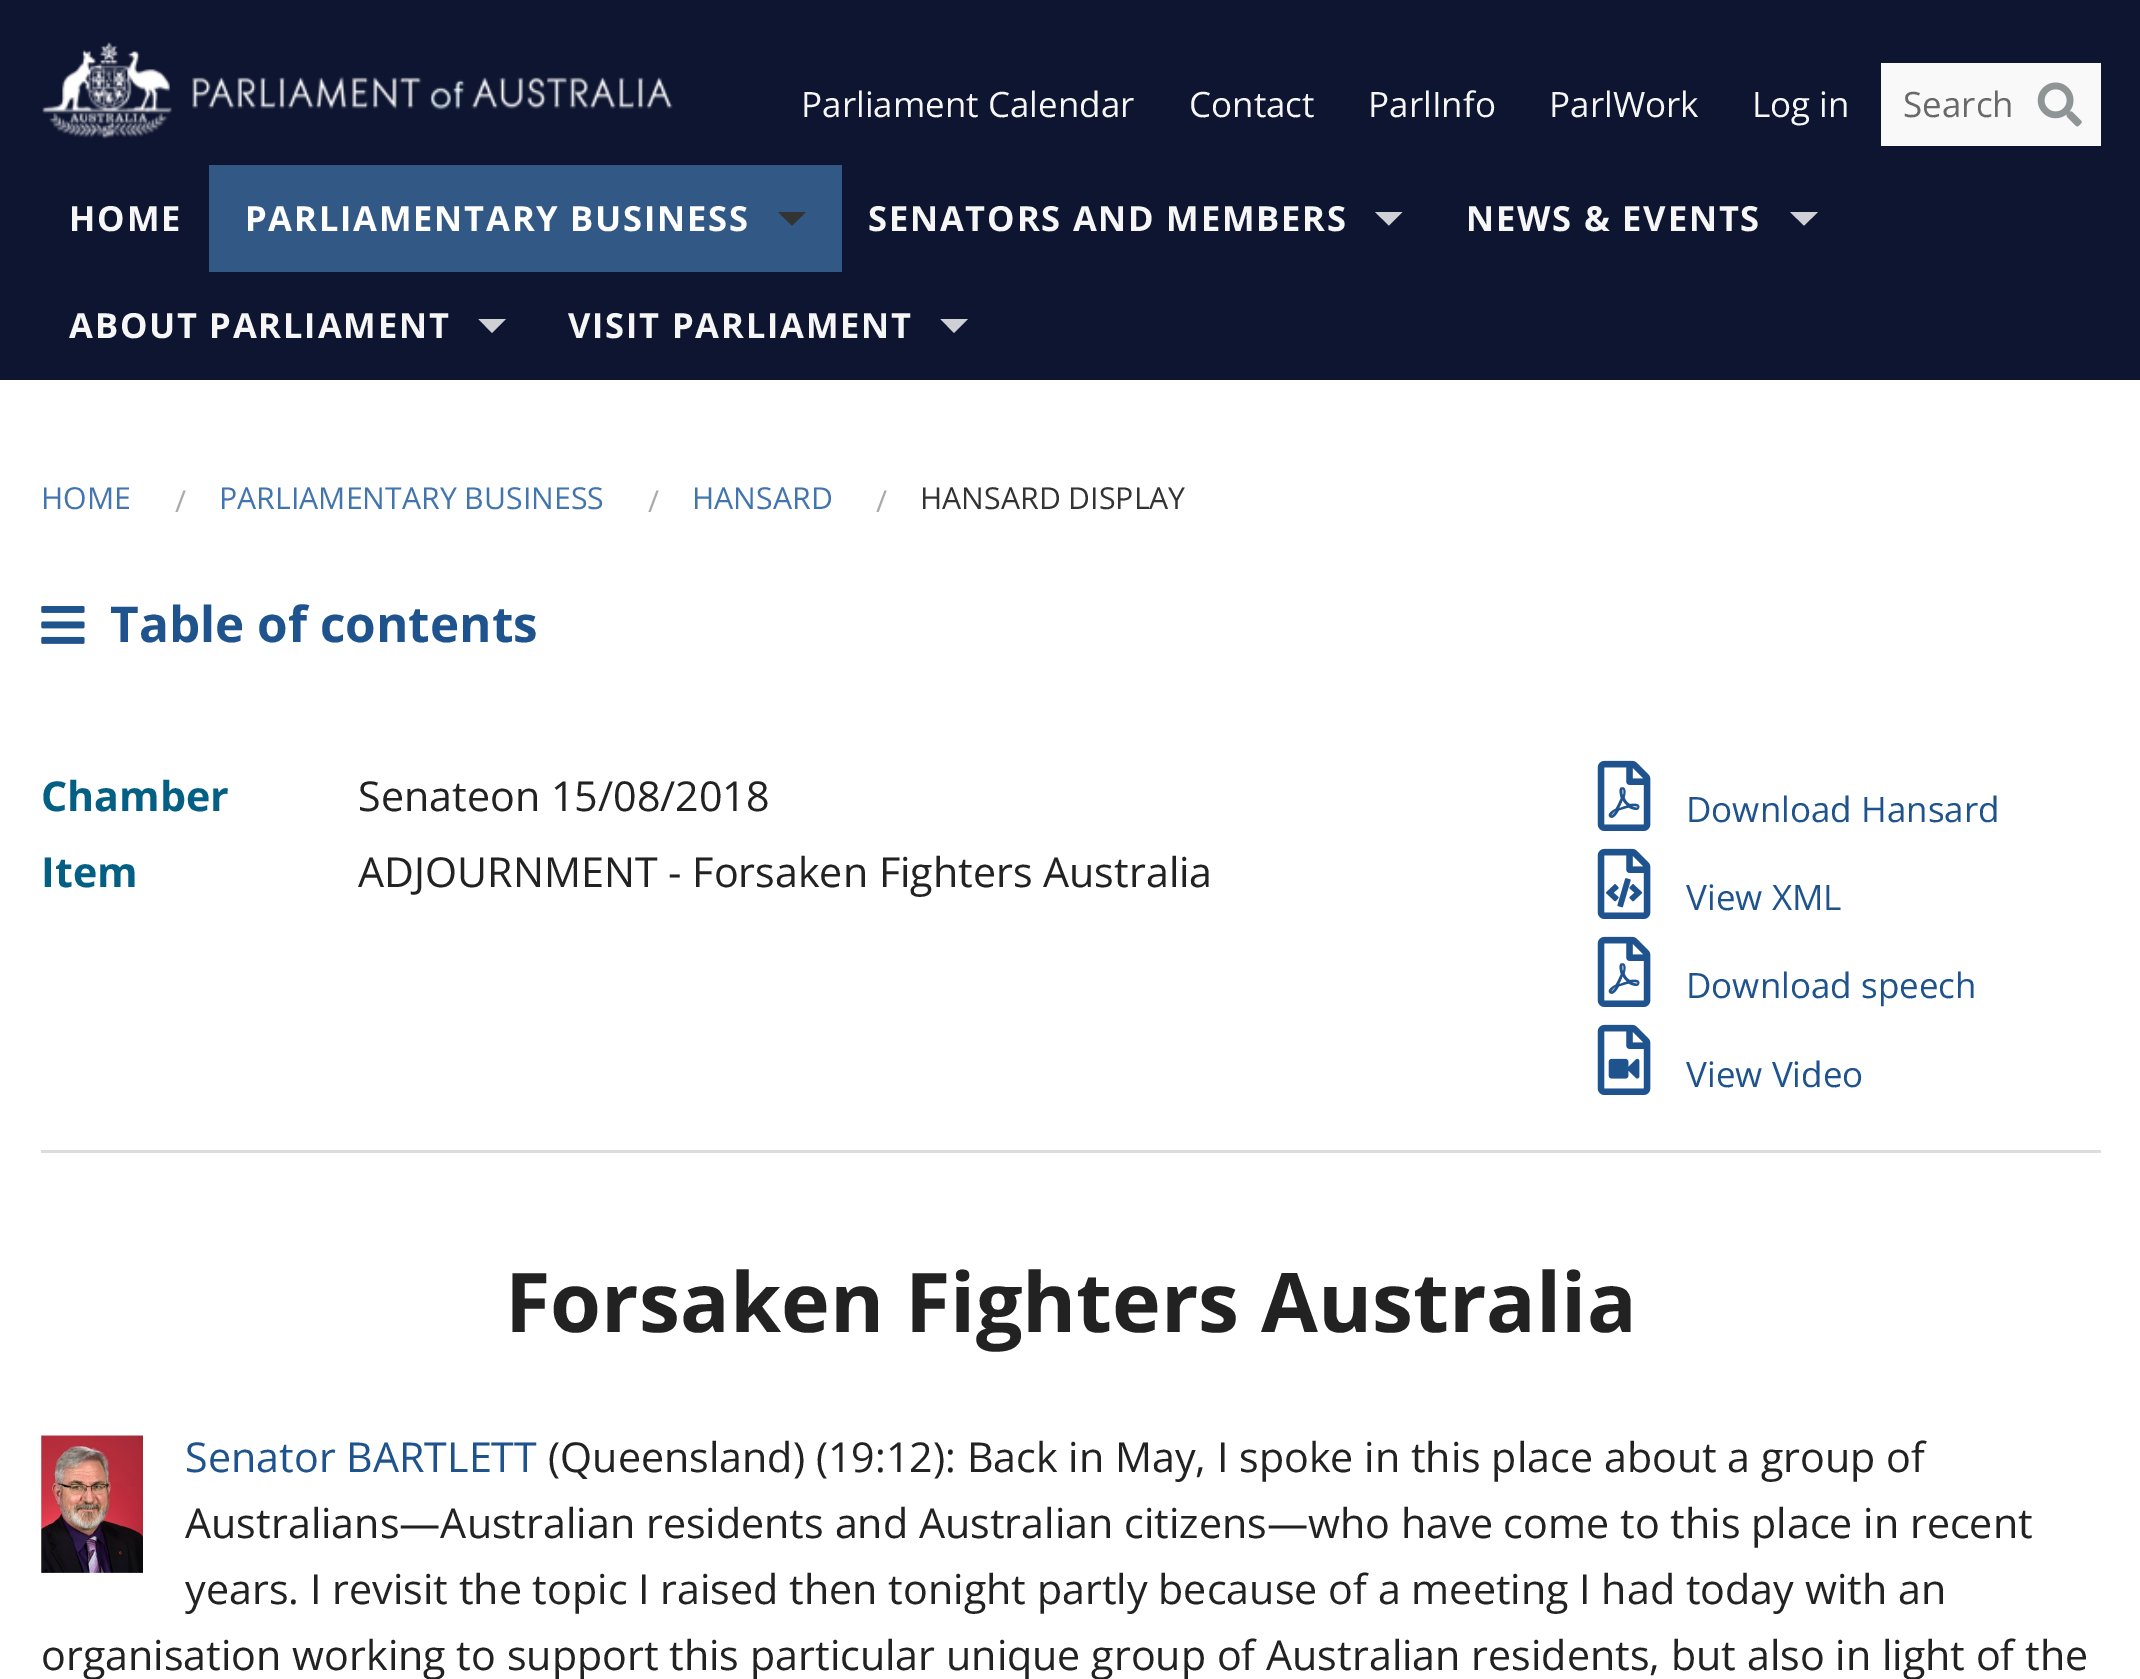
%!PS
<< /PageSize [2140 1679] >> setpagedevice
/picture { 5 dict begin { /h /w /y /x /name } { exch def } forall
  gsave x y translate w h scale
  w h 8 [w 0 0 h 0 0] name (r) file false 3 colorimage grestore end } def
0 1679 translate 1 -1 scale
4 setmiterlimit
1 setgray
0 0 2140 1679 rectfill
0.055 0.082 0.192 setrgbcolor
0 0 2140 380 rectfill
(img1.rgb) 42 42 631 97 picture
/OpenSans-Regular [35 0 0 -35 0 0] selectfont
0.965 setgray
801 117 moveto (Parliament Calendar) show
1189 117 moveto (Contact) show
1368 117 moveto (ParlInfo) show
1549 117 moveto (ParlWork) show
1752 117 moveto (Log in) show
0.976 setgray
1881 63 220 83 rectfill
0.412 setgray
1903 117 moveto (Search) show
(img2.rgb) 2037 82 45 45 picture
/OpenSans-Bold [34.6 0 0 -34.6 0 0] selectfont
0.965 setgray
69 231 moveto 1.75 0 (HOME) ashow
0.196 0.349 0.525 setrgbcolor
209 165 633 107 rectfill
1 setgray
245 231 moveto 1.75 0 (PARLIAMENTARY BUSINESS) ashow
0.2 setgray
newpath 778 212 moveto 806 212 lineto 792 225.5 lineto closepath fill
0.965 setgray
868 231 moveto 1.75 0 (SENATORS AND MEMBERS) ashow
0.812 0.816 0.839 setrgbcolor
newpath 1375 212 moveto 1402.5 212 lineto 1389 225.5 lineto closepath fill
0.965 setgray
1466 231 moveto 1.75 0 (NEWS & EVENTS) ashow
0.812 0.816 0.839 setrgbcolor
newpath 1790 212 moveto 1818 212 lineto 1804 225.5 lineto closepath fill
0.965 setgray
69 338 moveto 1.75 0 (ABOUT PARLIAMENT) ashow
0.812 0.816 0.839 setrgbcolor
newpath 478.5 319 moveto 506 319 lineto 492 333 lineto closepath fill
0.965 setgray
568 338 moveto 1.75 0 (VISIT PARLIAMENT) ashow
0.812 0.816 0.839 setrgbcolor
newpath 940.5 319 moveto 968 319 lineto 954 333 lineto closepath fill
/OpenSans-Regular [30.25 0 0 -30.25 0 0] selectfont
0.259 0.459 0.682 setrgbcolor
41 509 moveto (HOME) show
0.667 setgray
175 512 moveto (/) show
0.259 0.459 0.682 setrgbcolor
219 509 moveto (PARLIAMENTARY BUSINESS) show
0.667 setgray
648 512 moveto (/) show
0.259 0.459 0.682 setrgbcolor
692 509 moveto (HANSARD) show
0.667 setgray
876 512 moveto (/) show
0.2 setgray
920 509 moveto (HANSARD DISPLAY) show
(img3.rgb) 41 606 44 38 picture
/OpenSans-Bold [49.5 0 0 -49.5 0 0] selectfont
0.122 0.325 0.553 setrgbcolor
110 642 moveto (Table of contents) show
/OpenSans-Bold [41.25 0 0 -41.25 0 0] selectfont
0.016 0.373 0.522 setrgbcolor
41 811 moveto (Chamber) show
/OpenSans-Regular [41.25 0 0 -41.25 0 0] selectfont
0.133 setgray
358 811 moveto (Senateon 15/08/2018) show
/OpenSans-Bold [41.25 0 0 -41.25 0 0] selectfont
0.016 0.373 0.522 setrgbcolor
41 887 moveto (Item) show
/OpenSans-Regular [41.25 0 0 -41.25 0 0] selectfont
0.133 setgray
358 887 moveto (ADJOURNMENT - Forsaken Fighters Australia) show
(img4.rgb) 1597 760 54 71 picture
/OpenSans-Regular [35 0 0 -35 0 0] selectfont
0.122 0.325 0.553 setrgbcolor
1686 822 moveto (Download Hansard) show
(img5.rgb) 1597 848 54 71 picture
1686 910 moveto (View XML) show
(img4.rgb) 1597 936 54 71 picture
1686 998 moveto (Download speech) show
(img6.rgb) 1597 1024 54 71 picture
1686 1087 moveto (View Video) show
0.867 setgray
41 1150 2060 3 rectfill
/OpenSans-Bold [82.5 0 0 -82.5 0 0] selectfont
0.133 setgray
505 1332 moveto (Forsaken Fighters Australia) show
(img7.rgb) 41 1435 102 138 picture
/OpenSans-Regular [41.25 0 0 -41.25 0 0] selectfont
0.122 0.325 0.553 setrgbcolor
185 1472 moveto (Senator BARTLETT) show
0.133 setgray
548 1472 moveto (\(Queensland\) \(19:12\): Back in May, I spoke in this place about a group of) show
185 1538 moveto (Australians—Australian residents and Australian citizens—who have come to this place in recent) show
185 1604 moveto (years. I revisit the topic I raised then tonight partly because of a meeting I had today with an) show
41 1670 moveto (organisation working to support this particular unique group of Australian residents, but also in light of the) show
showpage
